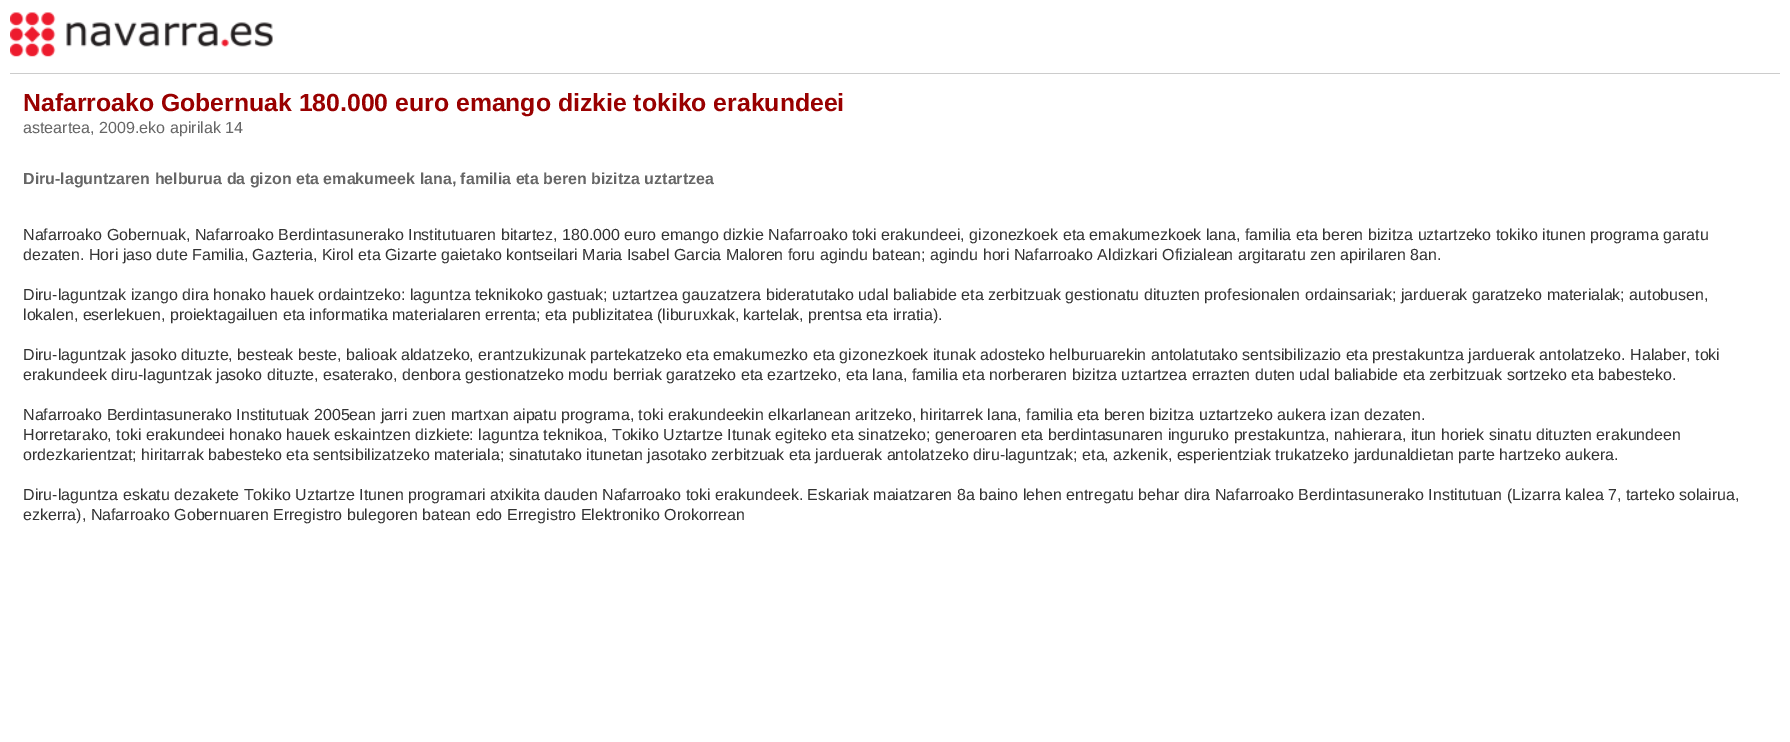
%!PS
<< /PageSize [1790 742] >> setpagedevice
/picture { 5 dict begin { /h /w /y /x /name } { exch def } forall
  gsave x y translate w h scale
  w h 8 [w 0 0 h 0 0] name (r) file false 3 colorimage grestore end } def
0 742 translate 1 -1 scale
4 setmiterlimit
1 setgray
0 0 1790 742 rectfill
(img1.rgb) 10 12 263 45 picture
0.8 setgray
10 73 1770 1 rectfill
/LiberationSans-Bold [24.8 0 0 -24.8 0 0] selectfont
0.6 0 0 setrgbcolor
23 111 moveto (Nafarroako Gobernuak 180.000 euro emango dizkie tokiko erakundeei) show
/LiberationSans-Regular [16.1 0 0 -16.1 0 0] selectfont
0.4 setgray
23 133 moveto (asteartea, 2009.eko apirilak 14) show
/LiberationSans-Bold [16 0 0 -16 0 0] selectfont
23 184 moveto (Diru-laguntzaren helburua da gizon eta emakumeek lana, familia eta beren bizitza uztartzea) show
/LiberationSans-Regular [16 0 0 -16 0 0] selectfont
0.2 setgray
23 240 moveto (Nafarroako Gobernuak, Nafarroako Berdintasunerako Institutuaren bitartez, 180.000 euro emango dizkie Nafarroako toki erakundeei, gizonezkoek eta emakumezkoek lana, familia eta beren bizitza uztartzeko tokiko itunen programa garatu) show
23 260 moveto (dezaten. Hori jaso dute Familia, Gazteria, Kirol eta Gizarte gaietako kontseilari Maria Isabel Garcia Maloren foru agindu batean; agindu hori Nafarroako Aldizkari Ofizialean argitaratu zen apirilaren 8an.) show
23 300 moveto (Diru-laguntzak izango dira honako hauek ordaintzeko: laguntza teknikoko gastuak; uztartzea gauzatzera bideratutako udal baliabide eta zerbitzuak gestionatu dituzten profesionalen ordainsariak; jarduerak garatzeko materialak; autobusen,) show
23 320 moveto (lokalen, eserlekuen, proiektagailuen eta informatika materialaren errenta; eta publizitatea \(liburuxkak, kartelak, prentsa eta irratia\).) show
23 360 moveto (Diru-laguntzak jasoko dituzte, besteak beste, balioak aldatzeko, erantzukizunak partekatzeko eta emakumezko eta gizonezkoek itunak adosteko helburuarekin antolatutako sentsibilizazio eta prestakuntza jarduerak antolatzeko. Halaber, toki) show
23 380 moveto (erakundeek diru-laguntzak jasoko dituzte, esaterako, denbora gestionatzeko modu berriak garatzeko eta ezartzeko, eta lana, familia eta norberaren bizitza uztartzea errazten duten udal baliabide eta zerbitzuak sortzeko eta babesteko.) show
23 420 moveto (Nafarroako Berdintasunerako Institutuak 2005ean jarri zuen martxan aipatu programa, toki erakundeekin elkarlanean aritzeko, hiritarrek lana, familia eta beren bizitza uztartzeko aukera izan dezaten.) show
23 440 moveto (Horretarako, toki erakundeei honako hauek eskaintzen dizkiete: laguntza teknikoa, Tokiko Uztartze Itunak egiteko eta sinatzeko; generoaren eta berdintasunaren inguruko prestakuntza, nahierara, itun horiek sinatu dituzten erakundeen) show
23 460 moveto (ordezkarientzat; hiritarrak babesteko eta sentsibilizatzeko materiala; sinatutako itunetan jasotako zerbitzuak eta jarduerak antolatzeko diru-laguntzak; eta, azkenik, esperientziak trukatzeko jardunaldietan parte hartzeko aukera.) show
23 500 moveto (Diru-laguntza eskatu dezakete Tokiko Uztartze Itunen programari atxikita dauden Nafarroako toki erakundeek. Eskariak maiatzaren 8a baino lehen entregatu behar dira Nafarroako Berdintasunerako Institutuan \(Lizarra kalea 7, tarteko solairua,) show
23 520 moveto (ezkerra\), Nafarroako Gobernuaren Erregistro bulegoren batean edo Erregistro Elektroniko Orokorrean) show
showpage
